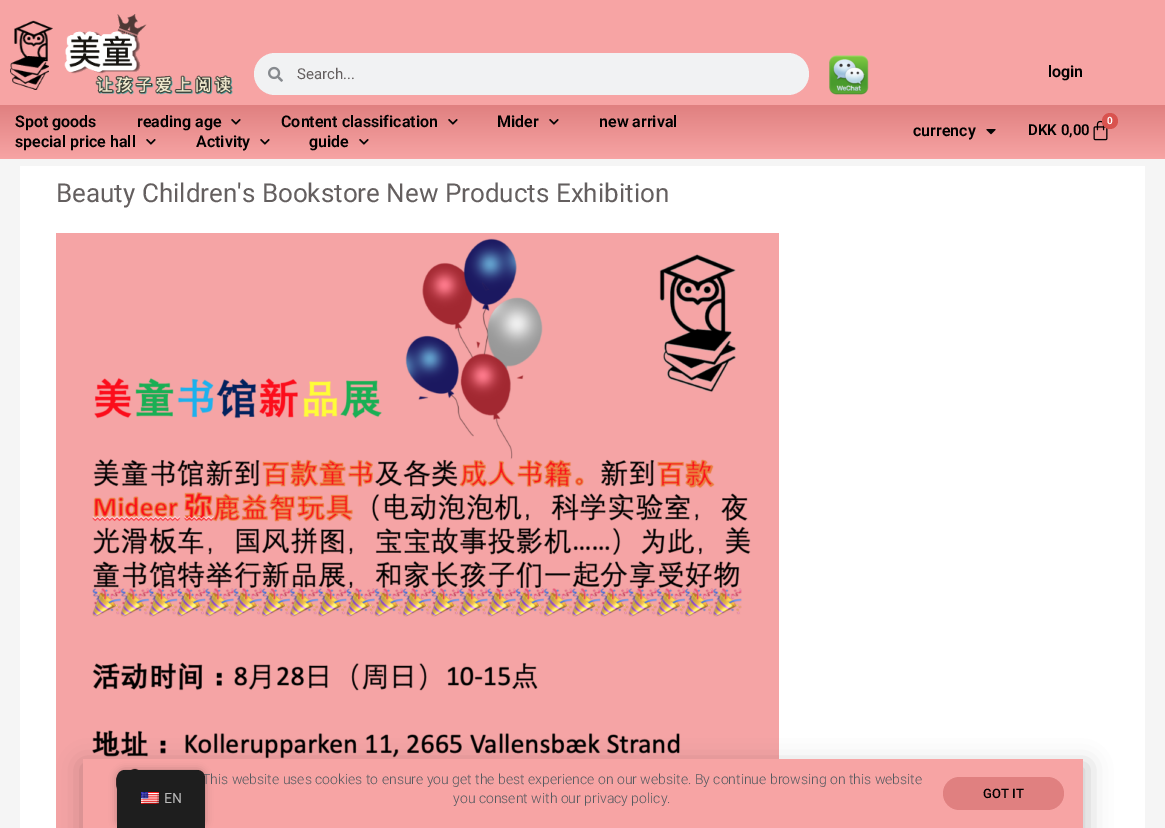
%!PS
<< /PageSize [1165 828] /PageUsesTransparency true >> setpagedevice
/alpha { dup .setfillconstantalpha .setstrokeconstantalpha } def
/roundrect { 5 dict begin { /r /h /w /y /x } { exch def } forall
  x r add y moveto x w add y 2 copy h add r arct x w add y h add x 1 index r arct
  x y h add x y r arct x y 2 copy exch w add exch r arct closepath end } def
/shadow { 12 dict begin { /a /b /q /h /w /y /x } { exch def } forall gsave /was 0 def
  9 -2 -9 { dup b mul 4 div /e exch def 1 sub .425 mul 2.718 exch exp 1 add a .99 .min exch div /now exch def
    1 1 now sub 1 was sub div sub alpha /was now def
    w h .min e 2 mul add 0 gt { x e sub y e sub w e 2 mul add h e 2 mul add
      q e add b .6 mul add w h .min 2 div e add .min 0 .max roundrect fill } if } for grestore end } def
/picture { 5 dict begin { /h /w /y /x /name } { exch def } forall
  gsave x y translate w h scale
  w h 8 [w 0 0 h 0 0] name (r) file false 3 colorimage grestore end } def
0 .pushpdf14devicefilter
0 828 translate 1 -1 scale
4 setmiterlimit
0.961 setgray
0 0 1165 828 rectfill
0.969 0.643 0.643 setrgbcolor
0 0 1165 105 rectfill
(img1.rgb) 10 14 223 81 picture
0.945 0.949 0.953 setrgbcolor
254 53 555 42 21 roundrect fill
(img2.rgb) 268 66 15 16 picture
/Roboto-Regular [15 0 0 -15 0 0] selectfont
0.392 0.373 0.373 setrgbcolor
297 79 moveto (Search...) show
(img3.rgb) 829 55 40 40 picture
/Roboto-SemiBold [16 0 0 -16 0 0] selectfont
0 setgray
1048 77 moveto (login) show
gsave newpath 0 105 moveto 1165 105 lineto 1165 159 lineto 0 159 lineto closepath clip newpath
<< /ShadingType 2 /ColorSpace /DeviceRGB /Coords [583 105 583 159] /Extend [true true] /Function << /FunctionType 2 /Domain [0 1] /C0 [0.878 0.502 0.502] /C1 [0.969 0.643 0.643] /N 1 >> >> shfill grestore
15 127 moveto (Spot goods) show
137 127 moveto (reading age) show
(img4.rgb) 231 119 10 6 picture
281 127 moveto (Content classification) show
(img4.rgb) 448 119 10 6 picture
497 127 moveto (Mider) show
(img4.rgb) 549 119 10 6 picture
599 127 moveto (new arrival) show
15 147 moveto (special price hall) show
(img5.rgb) 146 139 10 6 picture
196 147 moveto (Activity) show
(img5.rgb) 260 139 10 6 picture
309 147 moveto (guide) show
(img5.rgb) 359 139 10 6 picture
913 136 moveto (currency) show
(img6.rgb) 986 129 10 6 picture
(img7.rgb) 1093 120 15 21 picture
0.851 0.325 0.31 setrgbcolor
newpath 1110 121 8 0 360 arc closepath fill
/Roboto-SemiBold [10 0 0 -10 0 0] selectfont
1 setgray
1107 124 moveto (0) show
/Roboto-SemiBold [15 0 0 -15 0 0] selectfont
0 setgray
1028 135 moveto (DKK 0,00) show
1 setgray
20 166 1125 662 rectfill
/Roboto-Regular [26 0 0 -26 0 0] selectfont
0.392 0.373 0.373 setrgbcolor
56 202 moveto (Beauty Children's Bookstore New Products Exhibition) show
(img8.rgb) 56 233 723 595 picture
0 setgray
82 764 1006 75 0 11.5 0.2 shadow
0.969 0.643 0.643 setrgbcolor
83 759 1000 69 rectfill
(img10.rgb) 116 768 23 21 picture
0 setgray
117 770 88 58 8 4 0.25 shadow
/Roboto-Light [14 0 0 -14 0 0] selectfont
0.329 0.349 0.373 setrgbcolor
202 784 moveto (This website uses cookies to ensure you get the best experience on our website. By continue browsing on this website) show
0.118 setgray
newpath 125 770 moveto 197 770 lineto 201.5 770 205 773.5 205 778 curveto 205 828 lineto 117 828 lineto 117 778 lineto 117 773.5 120.5 770 125 770 curveto closepath fill
(img9.rgb) 141 792 18 12 picture
/Roboto-Regular [14 0 0 -14 0 0] selectfont
0.741 setgray
164 803 moveto (EN) show
/Roboto-Light [14 0 0 -14 0 0] selectfont
0.329 0.349 0.373 setrgbcolor
453 803 moveto (you consent with our privacy policy.) show
0.878 0.502 0.502 setrgbcolor
943 777 121 33 16.5 roundrect fill
/Roboto-Medium [13 0 0 -13 0 0] selectfont
0 setgray
983 798 moveto (GOT IT) show
.poppdf14devicefilter showpage
